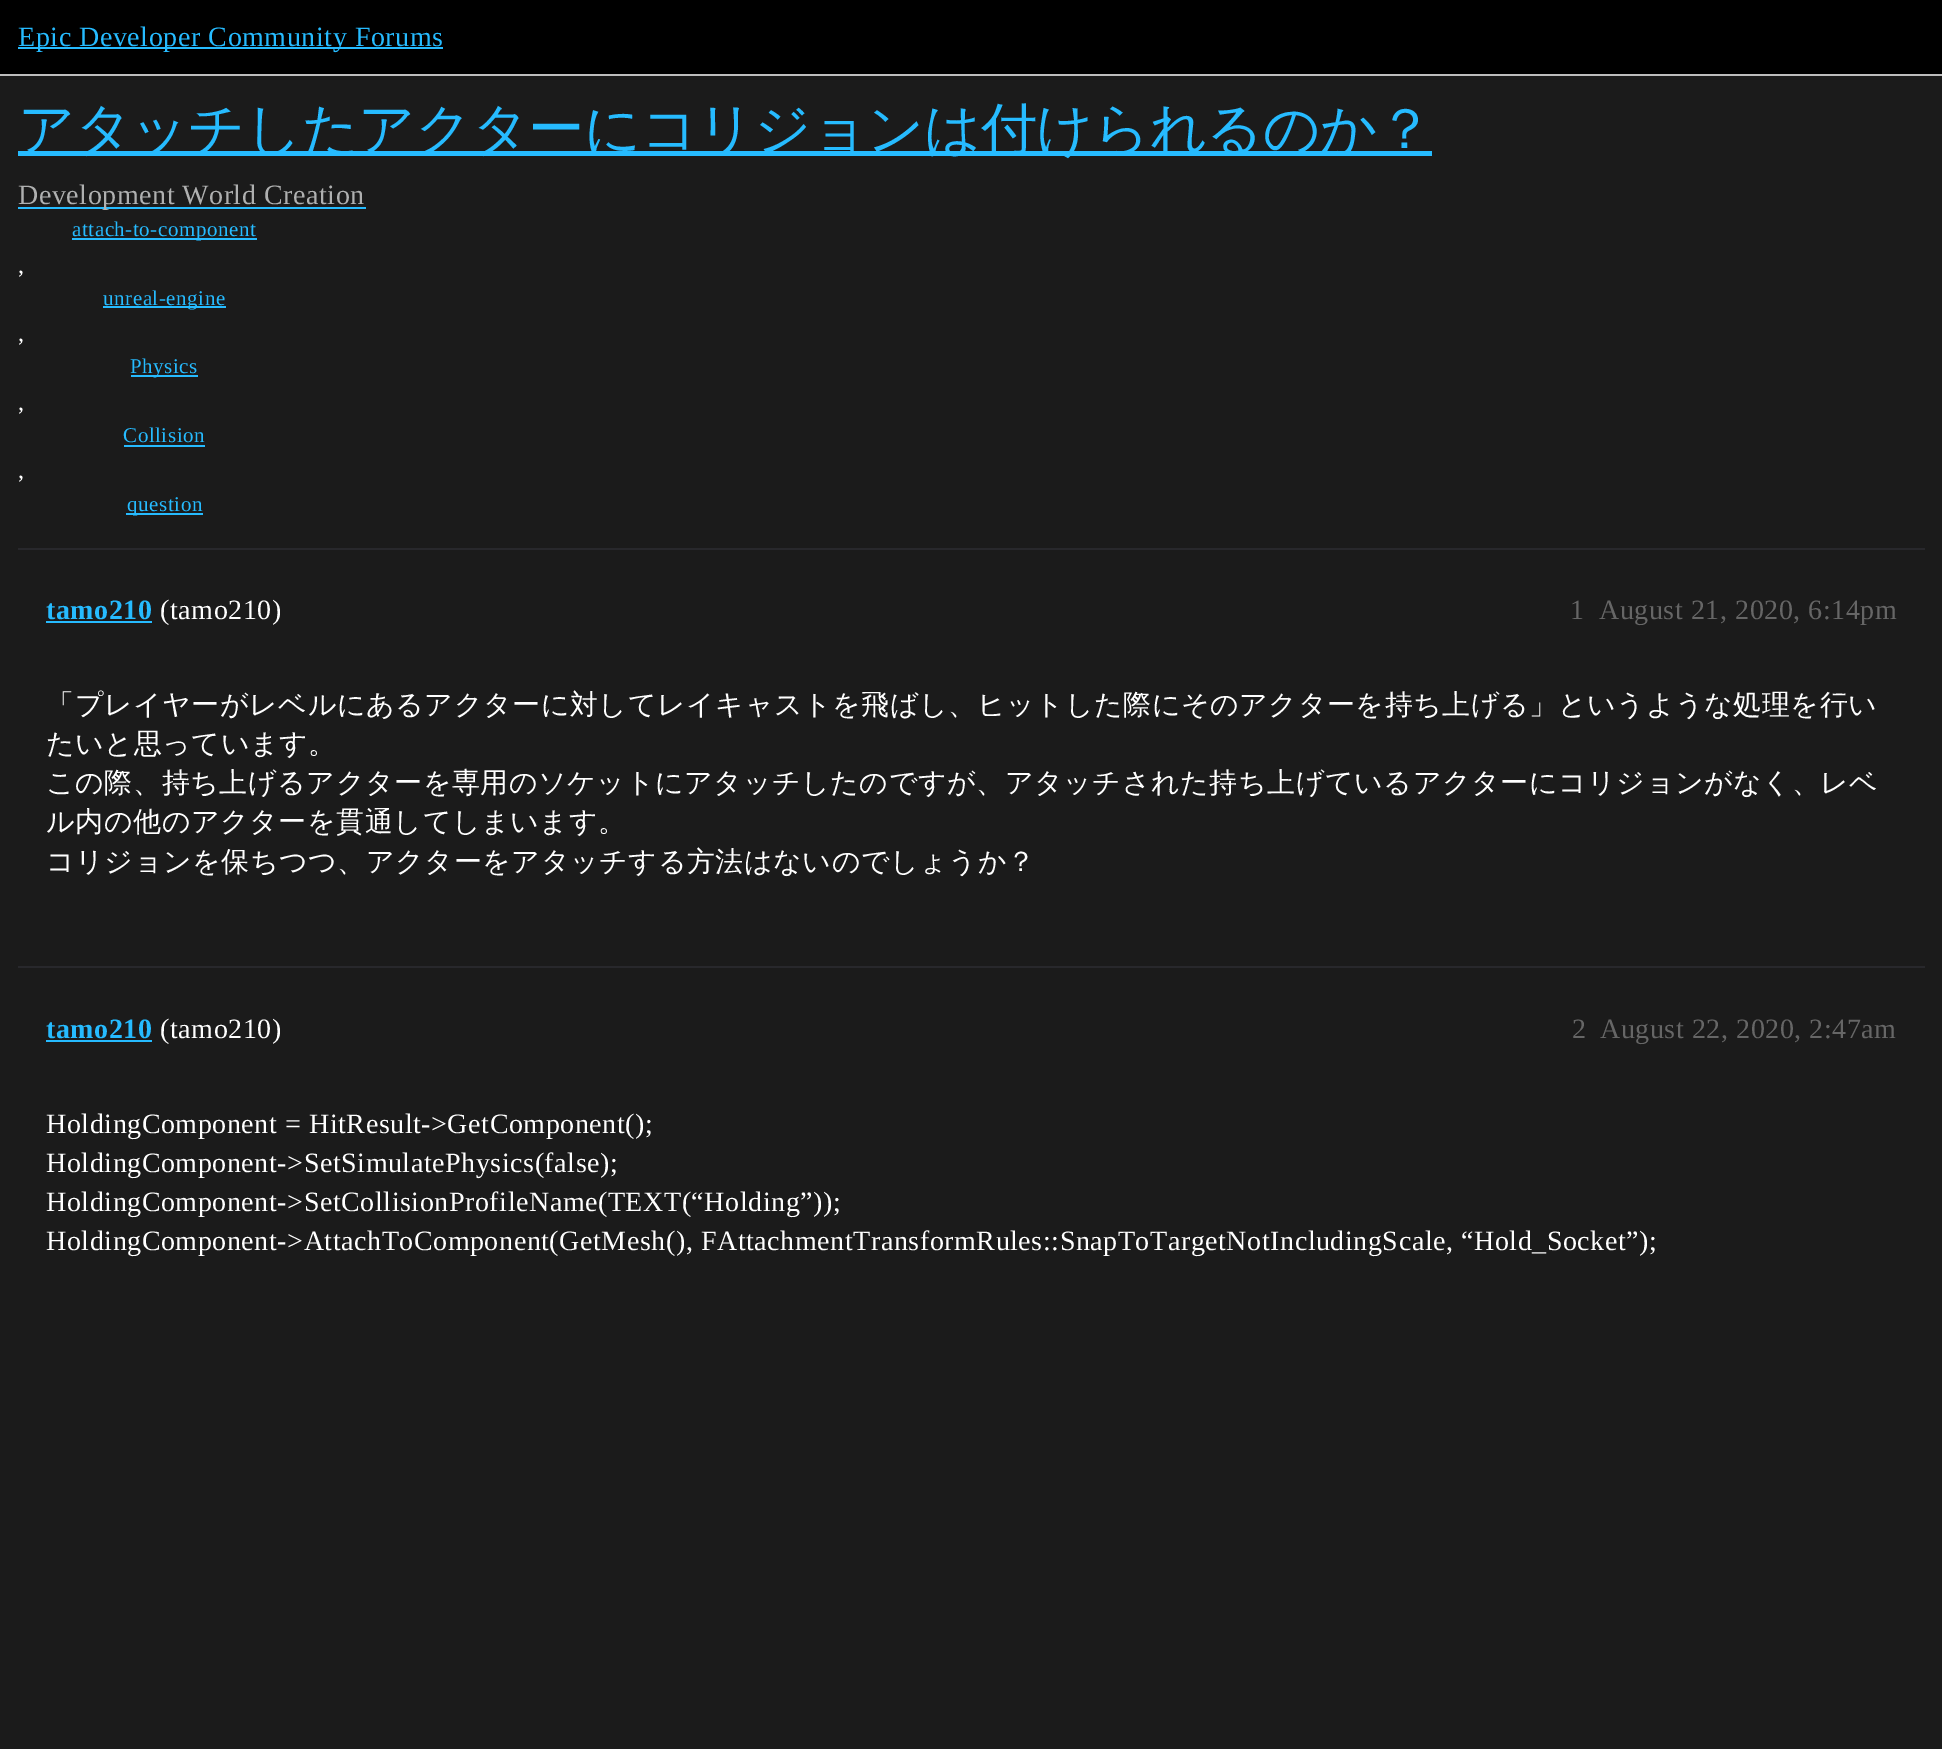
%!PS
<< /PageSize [1942 1749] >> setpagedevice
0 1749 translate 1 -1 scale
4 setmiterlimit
0.106 setgray
0 0 1942 1749 rectfill
0 setgray
0 0 1942 74 rectfill
0.741 setgray
0 74 1942 2 rectfill
0.149 0.733 1 setrgbcolor
18 47 425 2 rectfill
/LiberationSerif-Regular [28 0 0 -28 0 0] selectfont
18 46 moveto 0.56 0 (Epic Developer Community Forums) ashow
18 151 1414 5 rectfill
/WenQuanYiZenHei-Medium [56.3 0 0 -56.3 0 0] selectfont
18 148 moveto -0.9 0 (アタッチしたアクターにコリジョンは付けられるのか？) ashow
18 207 348 2 rectfill
/LiberationSerif-Regular [28 0 0 -28 0 0] selectfont
0.686 0.69 0.69 setrgbcolor
18 204 moveto 0.56 0 (Development) ashow
182 204 moveto 0.56 0 (World Creation) ashow
0.149 0.733 1 setrgbcolor
72 238 185 2 rectfill
/LiberationSerif-Regular [21 0 0 -21 0 0] selectfont
72 236 moveto 0.56 0 (attach-to-component) ashow
/LiberationSerif-Regular [24 0 0 -24 0 0] selectfont
1 setgray
18 273 moveto 0.56 0 (,) ashow
0.149 0.733 1 setrgbcolor
103 306 123 2 rectfill
/LiberationSerif-Regular [21 0 0 -21 0 0] selectfont
103 305 moveto 0.56 0 (unreal-engine) ashow
/LiberationSerif-Regular [24 0 0 -24 0 0] selectfont
1 setgray
18 341 moveto 0.56 0 (,) ashow
0.149 0.733 1 setrgbcolor
131 375 67 2 rectfill
/LiberationSerif-Regular [21 0 0 -21 0 0] selectfont
130 373 moveto 0.56 0 (Physics) ashow
/LiberationSerif-Regular [24 0 0 -24 0 0] selectfont
1 setgray
18 410 moveto 0.56 0 (,) ashow
/LiberationSerif-Regular [21 0 0 -21 0 0] selectfont
0.149 0.733 1 setrgbcolor
123 442 moveto 0.56 0 (Collision) ashow
124 445 81 2 rectfill
/LiberationSerif-Regular [24 0 0 -24 0 0] selectfont
1 setgray
18 478 moveto 0.56 0 (,) ashow
0.149 0.733 1 setrgbcolor
126 513 77 2 rectfill
/LiberationSerif-Regular [21 0 0 -21 0 0] selectfont
127 511 moveto 0.56 0 (question) ashow
0.157 0.157 0.173 setrgbcolor
18 548 1907 2 rectfill
/LiberationSerif-Bold [28 0 0 -28 0 0] selectfont
0.149 0.733 1 setrgbcolor
46 619 moveto 0.56 0 (tamo210) ashow
46 621 106 2 rectfill
/LiberationSerif-Regular [28 0 0 -28 0 0] selectfont
1 setgray
160 619 moveto 0.56 0 (\(tamo210\)) ashow
0.4 setgray
1570 619 moveto 0.56 0 (1) ashow
1599 619 moveto 0.56 0 (August 21, 2020, 6:14pm) ashow
/WenQuanYiZenHei-Medium [28 0 0 -28 0 0] selectfont
1 setgray
46 714 moveto 0.56 0 (「プレイヤーがレベルにあるアクターに対してレイキャストを飛ばし、ヒットした際にそのアクターを持ち上げる」というような処理を行い) ashow
46 753 moveto 0.56 0 (たいと思っています。) ashow
46 792 moveto 0.56 0 (この際、持ち上げるアクターを専用のソケットにアタッチしたのですが、アタッチされた持ち上げているアクターにコリジョンがなく、レベ) ashow
46 831 moveto 0.56 0 (ル内の他のアクターを貫通してしまいます。) ashow
46 871 moveto 0.56 0 (コリジョンを保ちつつ、アクターをアタッチする方法はないのでしょうか？) ashow
0.157 0.157 0.173 setrgbcolor
18 966 1907 2 rectfill
/LiberationSerif-Bold [28 0 0 -28 0 0] selectfont
0.149 0.733 1 setrgbcolor
46 1038 moveto 0.56 0 (tamo210) ashow
46 1040 106 2 rectfill
/LiberationSerif-Regular [28 0 0 -28 0 0] selectfont
1 setgray
160 1038 moveto 0.56 0 (\(tamo210\)) ashow
0.4 setgray
1572 1038 moveto 0.56 0 (2) ashow
1600 1038 moveto 0.56 0 (August 22, 2020, 2:47am) ashow
1 setgray
46 1133 moveto 0.56 0 (HoldingComponent = HitResult->GetComponent\(\);) ashow
46 1172 moveto 0.56 0 (HoldingComponent->SetSimulatePhysics\(false\);) ashow
46 1211 moveto 0.56 0 (HoldingComponent->SetCollisionProfileName\(TEXT\(“Holding”\)\);) ashow
46 1250 moveto 0.56 0 (HoldingComponent->AttachToComponent\(GetMesh\(\), FAttachmentTransformRules::SnapToTargetNotIncludingScale, “Hold_Socket”\);) ashow
showpage
